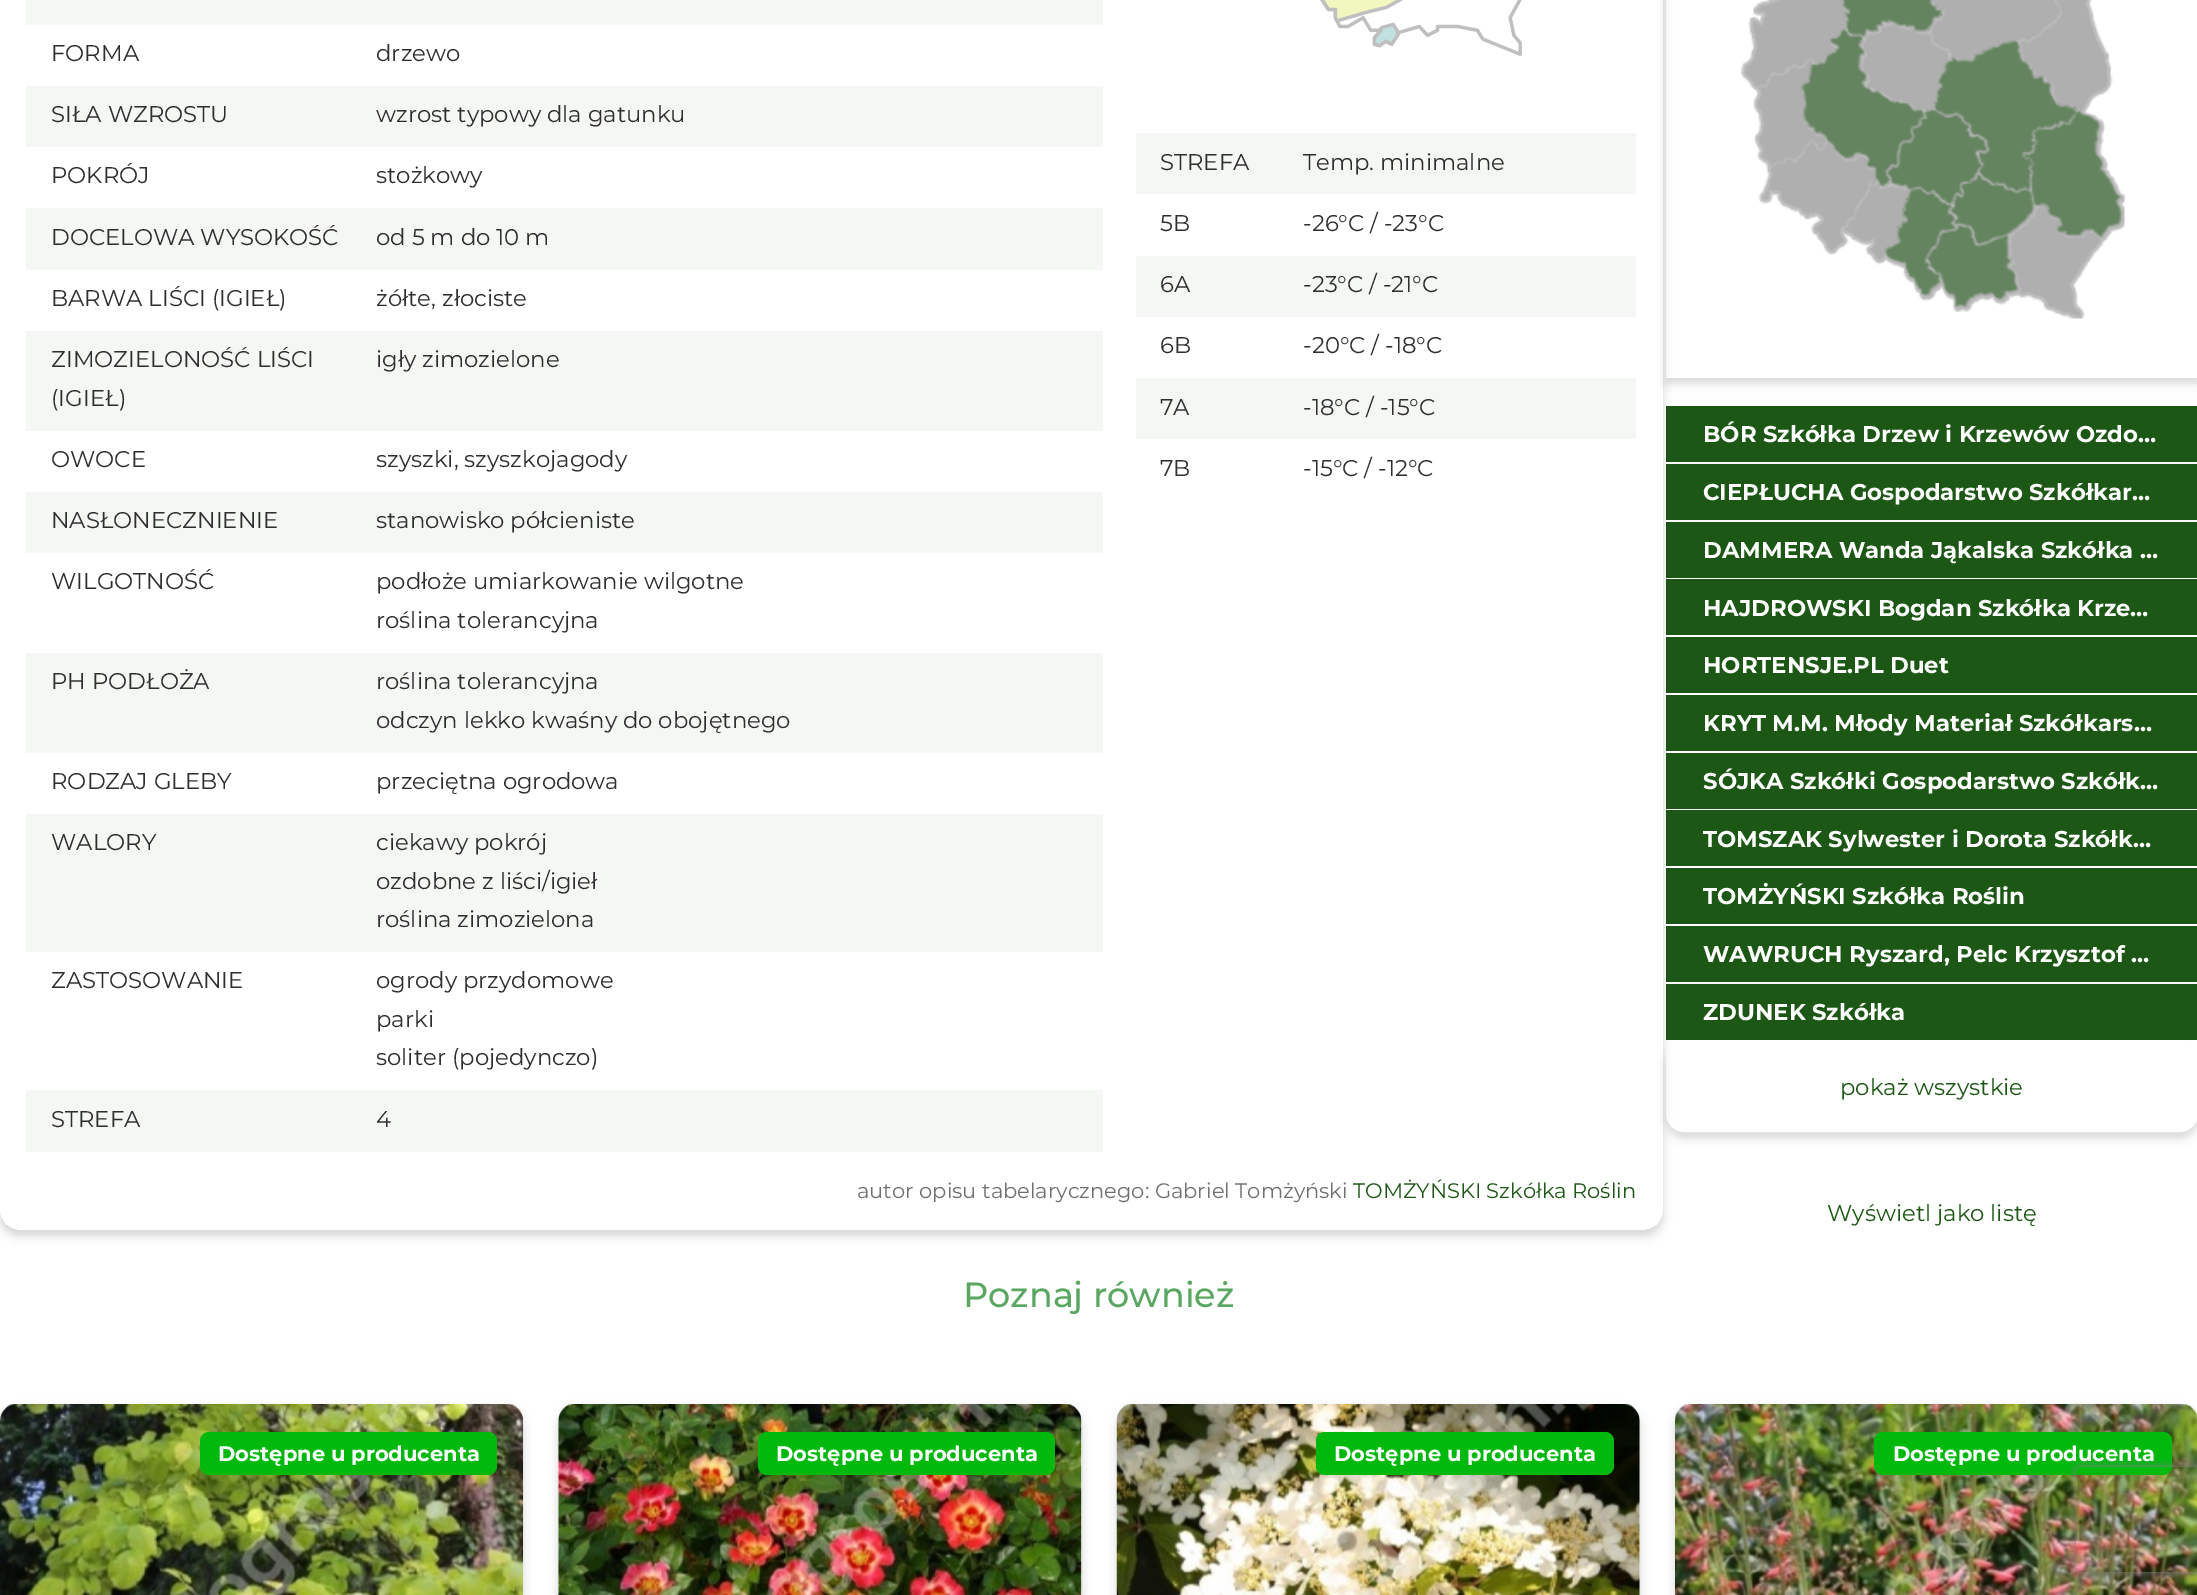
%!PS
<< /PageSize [2197 1595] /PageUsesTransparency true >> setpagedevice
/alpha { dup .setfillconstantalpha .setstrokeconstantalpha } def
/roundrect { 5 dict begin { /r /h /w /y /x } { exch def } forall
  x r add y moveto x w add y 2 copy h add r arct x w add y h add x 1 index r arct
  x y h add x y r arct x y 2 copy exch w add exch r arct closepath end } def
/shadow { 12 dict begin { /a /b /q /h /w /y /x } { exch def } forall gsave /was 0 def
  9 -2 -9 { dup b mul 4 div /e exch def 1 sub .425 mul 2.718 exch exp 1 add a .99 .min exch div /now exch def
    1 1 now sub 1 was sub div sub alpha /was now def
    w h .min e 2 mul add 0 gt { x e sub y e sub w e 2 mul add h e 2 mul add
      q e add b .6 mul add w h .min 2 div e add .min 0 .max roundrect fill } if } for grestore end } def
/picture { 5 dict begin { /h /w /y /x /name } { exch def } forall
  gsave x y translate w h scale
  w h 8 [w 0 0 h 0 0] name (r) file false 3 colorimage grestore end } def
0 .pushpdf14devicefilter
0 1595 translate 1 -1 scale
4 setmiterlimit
1 setgray
0 0 2197 1595 rectfill
0.114 0.341 0.086 setrgbcolor
1666 406 531 56 rectfill
1666 464 531 56 rectfill
1666 522 531 56 rectfill
1666 579 531 56 rectfill
1666 637 531 56 rectfill
1666 695 531 56 rectfill
1666 753 531 56 rectfill
1666 810 531 56 rectfill
1666 868 531 56 rectfill
1666 926 531 56 rectfill
gsave
newpath 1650 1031 moveto 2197 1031 lineto 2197 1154 lineto 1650 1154 lineto closepath 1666 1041 moveto 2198 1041 lineto 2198 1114 lineto 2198 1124 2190 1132 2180 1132 curveto 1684 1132 lineto 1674 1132 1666 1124 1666 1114 curveto closepath eoclip newpath
0 setgray
1666 1047 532 91 18 5 0.16 shadow
grestore
1666 984 531 56 rectfill
1 setgray
1678 1040 508 1 rectfill
2 setlinewidth
newpath 1667 1042 moveto 2197 1042 lineto 2197 1114 lineto 2197 1123.5 2189.5 1131 2180 1131 curveto 1684 1131 lineto 1674.5 1131 1667 1123.5 1667 1114 curveto closepath stroke
gsave
newpath 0 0 moveto 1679 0 lineto 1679 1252 lineto 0 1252 lineto closepath 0 -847 moveto 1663 -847 lineto 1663 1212 lineto 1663 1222 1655 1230 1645 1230 curveto 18 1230 lineto 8 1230 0 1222 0 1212 curveto closepath eoclip newpath
0 setgray
0 -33 1663 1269 18 5 0.16 shadow
grestore
0.957 0.969 0.953 setrgbcolor
26 0 1077 25 rectfill
/Montserrat-Regular [22.75 0 0 -22.75 0 0] selectfont
0.18 setgray
51 61 moveto (FORMA) show
376 61 moveto (drzewo) show
0.957 0.969 0.953 setrgbcolor
26 86 1077 61 rectfill
0.18 setgray
51 122 moveto (SIŁA WZROSTU) show
376 122 moveto (wzrost typowy dla gatunku) show
51 183 moveto (POKRÓJ) show
376 183 moveto (stożkowy) show
0.957 0.969 0.953 setrgbcolor
26 208 1077 62 rectfill
0.18 setgray
51 245 moveto (DOCELOWA WYSOKOŚĆ) show
376 245 moveto (od 5 m do 10 m) show
51 306 moveto (BARWA LIŚCI \(IGIEŁ\)) show
376 306 moveto (żółte, złociste) show
0.957 0.969 0.957 setrgbcolor
26 331 1077 100 rectfill
0.18 setgray
51 367 moveto (ZIMOZIELONOŚĆ LIŚCI) show
51 406 moveto (\(IGIEŁ\)) show
376 367 moveto (igły zimozielone) show
51 467 moveto (OWOCE) show
376 467 moveto (szyszki, szyszkojagody) show
0.957 0.969 0.953 setrgbcolor
26 492 1077 61 rectfill
0.18 setgray
51 528 moveto (NASŁONECZNIENIE) show
376 528 moveto (stanowisko półcieniste) show
51 589 moveto (WILGOTNOŚĆ) show
376 589 moveto (podłoże umiarkowanie wilgotne) show
376 628 moveto (roślina tolerancyjna) show
0.957 0.969 0.957 setrgbcolor
26 653 1077 100 rectfill
0.18 setgray
51 689 moveto (PH PODŁOŻA) show
376 689 moveto (roślina tolerancyjna) show
376 728 moveto (odczyn lekko kwaśny do obojętnego) show
51 789 moveto (RODZAJ GLEBY) show
376 789 moveto (przeciętna ogrodowa) show
0.957 0.969 0.957 setrgbcolor
26 814 1077 138 rectfill
0.18 setgray
51 850 moveto (WALORY) show
376 850 moveto (ciekawy pokrój) show
376 889 moveto (ozdobne z liści/igieł) show
376 927 moveto (roślina zimozielona) show
51 988 moveto (ZASTOSOWANIE) show
376 988 moveto (ogrody przydomowe) show
376 1027 moveto (parki) show
376 1065 moveto (soliter \(pojedynczo\)) show
0.957 0.969 0.953 setrgbcolor
26 1090 1077 62 rectfill
0.18 setgray
51 1127 moveto (STREFA) show
376 1127 moveto (4) show
(img1.rgb) 1320 0 202 56 picture
0.957 0.969 0.953 setrgbcolor
1136 133 500 61 rectfill
0.18 setgray
1160 170 moveto (STREFA) show
1303 170 moveto (Temp. minimalne) show
1160 231 moveto (5B) show
1303 231 moveto (-26°C / -23°C) show
0.957 0.969 0.953 setrgbcolor
1136 256 500 61 rectfill
0.18 setgray
1160 292 moveto (6A) show
1303 292 moveto (-23°C / -21°C) show
1160 353 moveto (6B) show
1303 353 moveto (-20°C / -18°C) show
0.957 0.969 0.953 setrgbcolor
1136 378 500 61 rectfill
0.18 setgray
1160 415 moveto (7A) show
1303 415 moveto (-18°C / -15°C) show
1160 476 moveto (7B) show
1303 476 moveto (-15°C / -12°C) show
/Montserrat-Regular [21 0 0 -21 0 0] selectfont
0.439 setgray
857 1198 moveto (autor opisu tabelarycznego: Gabriel Tomżyński) show
0.114 0.341 0.086 setrgbcolor
1353 1198 moveto (TOMŻYŃSKI Szkółka Roślin) show
gsave
newpath 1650 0 moveto 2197 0 lineto 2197 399 lineto 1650 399 lineto closepath 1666 -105 moveto 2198 -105 lineto 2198 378 lineto 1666 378 lineto closepath eoclip newpath
0 setgray
1666 -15 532 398 0 5 0.16 shadow
grestore
(img2.rgb) 1741 0 384 319 picture
(img3.rgb) 1842 0 102 38 picture
(img6.rgb) 1886 108 102 97 picture
(img4.rgb) 1800 28 126 159 picture
(img8.rgb) 2023 110 99 128 picture
(img5.rgb) 1933 39 145 154 picture
(img10.rgb) 1926 225 93 83 picture
(img9.rgb) 1884 188 72 108 picture
(img7.rgb) 1950 174 85 71 picture
/Montserrat-Bold [22.75 0 0 -22.75 0 0] selectfont
1 setgray
1703 442 moveto (BÓR Szkółka Drzew i Krzewów Ozdo…) show
1703 500 moveto (CIEPŁUCHA Gospodarstwo Szkółkar…) show
1703 558 moveto (DAMMERA Wanda Jąkalska Szkółka …) show
1703 616 moveto (HAJDROWSKI Bogdan Szkółka Krze…) show
1703 673 moveto (HORTENSJE.PL Duet) show
1703 731 moveto (KRYT M.M. Młody Materiał Szkółkars…) show
1703 789 moveto (SÓJKA Szkółki Gospodarstwo Szkółk…) show
1703 847 moveto (TOMSZAK Sylwester i Dorota Szkółk…) show
1703 904 moveto (TOMŻYŃSKI Szkółka Roślin) show
1703 962 moveto (WAWRUCH Ryszard, Pelc Krzysztof …) show
1703 1020 moveto (ZDUNEK Szkółka) show
/Montserrat-Regular [22.75 0 0 -22.75 0 0] selectfont
0.114 0.341 0.086 setrgbcolor
1840 1095 moveto (pokaż wszystkie) show
1827 1221 moveto (Wyświetl jako listę) show
/Montserrat-Medium [35 0 0 -35 0 0] selectfont
0.357 0.655 0.384 setrgbcolor
963 1307 moveto (Poznaj również) show
0 setgray
0 1409 523 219 18 5 0.16 shadow
(img11.rgb) 0 1404 524 191 picture
0 0.725 0.047 setrgbcolor
200 1432 297 43 9 roundrect fill
/Montserrat-Bold [21 0 0 -21 0 0] selectfont
1 setgray
218 1461 moveto (Dostępne u producenta) show
0 setgray
558 1409 524 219 18 5 0.16 shadow
1 setgray
558 1404 524 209 18 roundrect fill
(img12.rgb) 558 1404 524 191 picture
0 0.725 0.047 setrgbcolor
758 1432 297 43 9 roundrect fill
1 setgray
776 1461 moveto (Dostępne u producenta) show
0 setgray
1117 1409 523 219 18 5 0.16 shadow
1 setgray
1117 1404 523 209 18 roundrect fill
(img13.rgb) 1116 1404 524 191 picture
0 0.725 0.047 setrgbcolor
1316 1432 298 43 9 roundrect fill
1 setgray
1334 1461 moveto (Dostępne u producenta) show
0 setgray
1675 1409 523 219 18 5 0.16 shadow
(img14.rgb) 1675 1404 522 191 picture
0 0.725 0.047 setrgbcolor
1874 1432 298 43 9 roundrect fill
1 setgray
1893 1461 moveto (Dostępne u producenta) show
gsave
newpath 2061 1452 moveto 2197 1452 lineto 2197 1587 lineto 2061 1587 lineto closepath 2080 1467 moveto 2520 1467 lineto 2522 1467 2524 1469 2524 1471 curveto 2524 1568 lineto 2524 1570 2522 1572 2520 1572 curveto 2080 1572 lineto 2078 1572 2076 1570 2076 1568 curveto 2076 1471 lineto 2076 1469 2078 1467 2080 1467 curveto closepath eoclip newpath
0.502 setgray
2076 1467 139 105 4 4.5 1 shadow
grestore
.poppdf14devicefilter showpage
